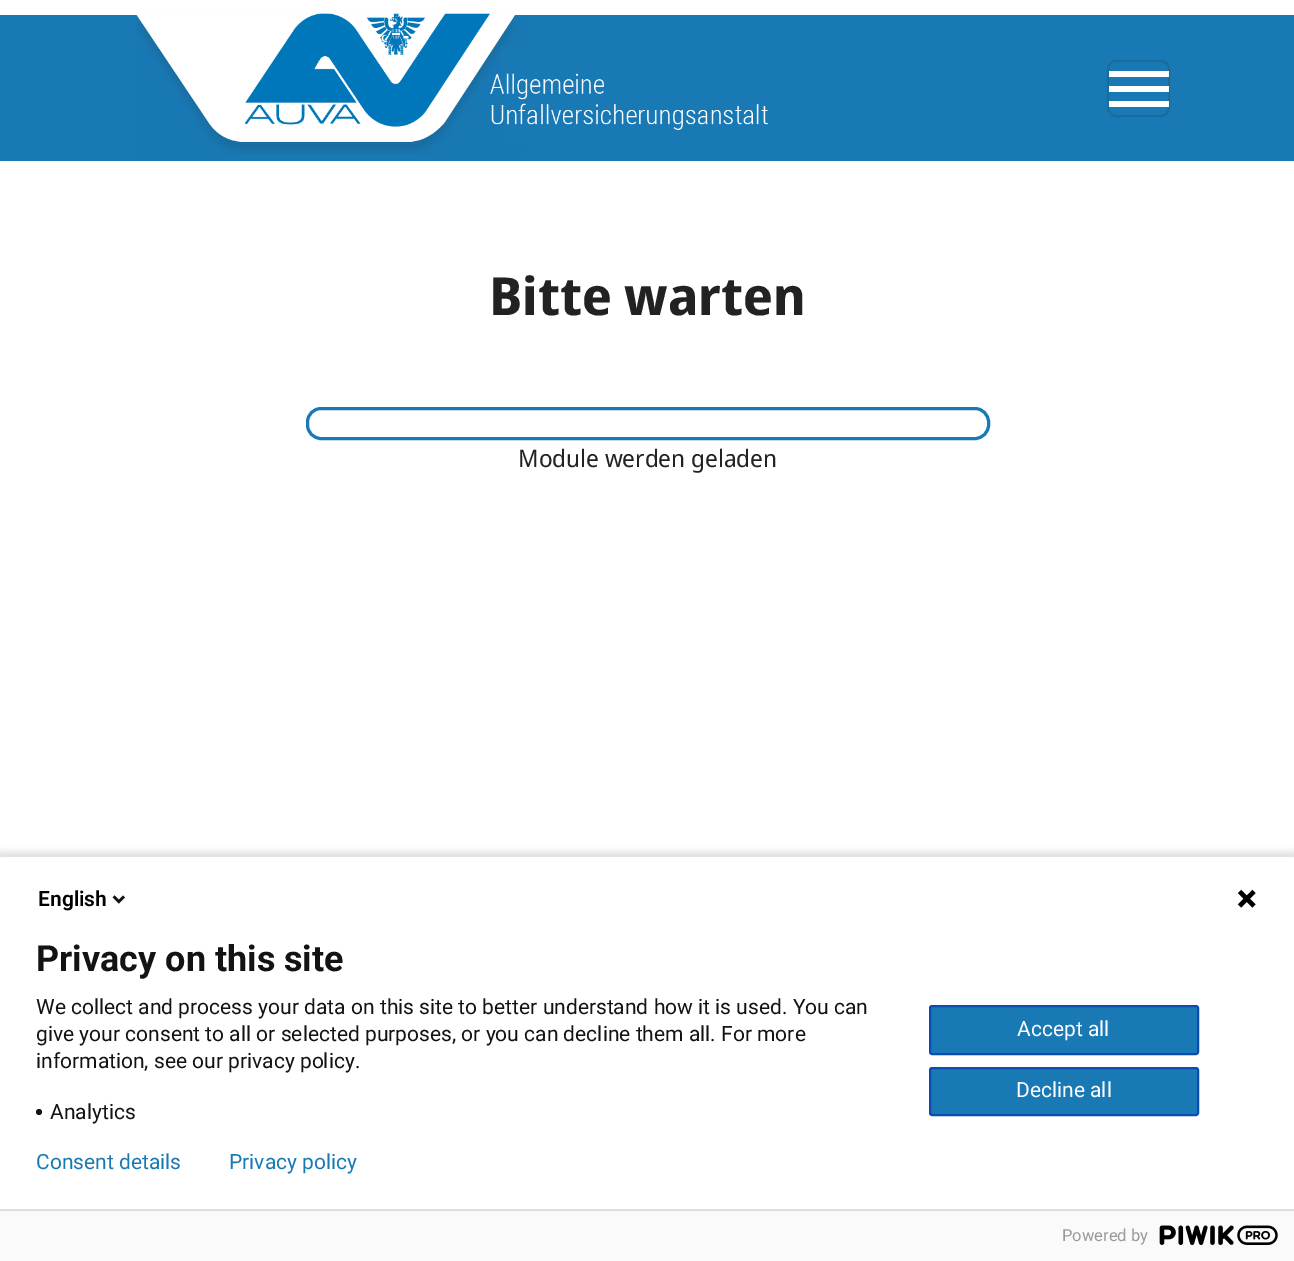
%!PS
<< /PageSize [1294 1261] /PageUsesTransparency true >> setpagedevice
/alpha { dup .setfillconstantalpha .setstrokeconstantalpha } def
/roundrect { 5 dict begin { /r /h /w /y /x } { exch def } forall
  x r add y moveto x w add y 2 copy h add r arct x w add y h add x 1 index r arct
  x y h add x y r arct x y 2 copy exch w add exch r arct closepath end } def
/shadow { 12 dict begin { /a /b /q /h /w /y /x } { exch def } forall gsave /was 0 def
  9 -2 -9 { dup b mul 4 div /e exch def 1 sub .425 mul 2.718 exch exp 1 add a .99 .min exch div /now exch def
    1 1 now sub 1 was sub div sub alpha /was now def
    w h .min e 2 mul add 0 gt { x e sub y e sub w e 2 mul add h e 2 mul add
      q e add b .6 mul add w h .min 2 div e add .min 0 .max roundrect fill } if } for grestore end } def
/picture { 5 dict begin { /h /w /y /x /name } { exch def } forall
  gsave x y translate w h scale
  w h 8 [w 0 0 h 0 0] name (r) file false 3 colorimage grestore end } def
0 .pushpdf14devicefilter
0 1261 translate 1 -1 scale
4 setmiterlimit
1 setgray
0 0 1294 1261 rectfill
0.094 0.475 0.71 setrgbcolor
0 15 1294 146 rectfill
(img1.rgb) 136 13 632 142 picture
0.102 0.424 0.624 setrgbcolor
2 setlinewidth
1108 61 61 55 8 roundrect stroke
1 setgray
1109 71 60 6 rectfill
1109 86 60 6 rectfill
1109 101 60 6 rectfill
/NotoSansDisplay-Bold [52.5 0 0 -52.5 0 0] selectfont
0.133 setgray
489 315 moveto (Bitte warten) show
0.094 0.475 0.71 setrgbcolor
3 setlinewidth
307.5 408.5 681 30 13.5 roundrect stroke
/NotoSansDisplay-Regular [24 0 0 -24 0 0] selectfont
0.133 setgray
518 467 moveto (Module werden geladen) show
0 setgray
-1 852 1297 408 0 4 0.14 shadow
1 setgray
0 857 1294 352 rectfill
/Roboto-SemiBold [21 0 0 -21 0 0] selectfont
0 setgray
38 906 moveto (English) show
(img2.rgb) 112 895 13 9 picture
(img3.rgb) 1237 889 19 19 picture
/Roboto-Bold [36 0 0 -36 0 0] selectfont
0.075 setgray
36 971 moveto (Privacy on this site) show
/Roboto-Regular [21 0 0 -21 0 0] selectfont
36 1014 moveto (We collect and process your data on this site to better understand how it is used. You can) show
36 1041 moveto (give your consent to all or selected purposes, or you can decline them all. For more) show
36 1068 moveto (information, see our privacy policy.) show
newpath 39 1112 3 0 360 arc closepath fill
50 1119 moveto (Analytics) show
0.094 0.475 0.71 setrgbcolor
930 1006 268 48 2 roundrect gsave fill grestore
0.043 0.294 0.702 setrgbcolor
2 setlinewidth
stroke
1 setgray
1017 1036 moveto (Accept all) show
0.094 0.475 0.71 setrgbcolor
930 1068 268 47 2 roundrect gsave fill grestore
0.043 0.294 0.702 setrgbcolor
stroke
1 setgray
1016 1097 moveto (Decline all) show
0.094 0.475 0.71 setrgbcolor
36 1169 moveto (Consent details) show
229 1169 moveto (Privacy policy) show
0.98 setgray
0 1211 1294 50 rectfill
0.867 setgray
0 1209 1294 2 rectfill
/Roboto-Regular [16.5 0 0 -16.5 0 0] selectfont
0.6 setgray
1062 1241 moveto (Powered by) show
(img4.rgb) 1159 1225 119 20 picture
.poppdf14devicefilter showpage
